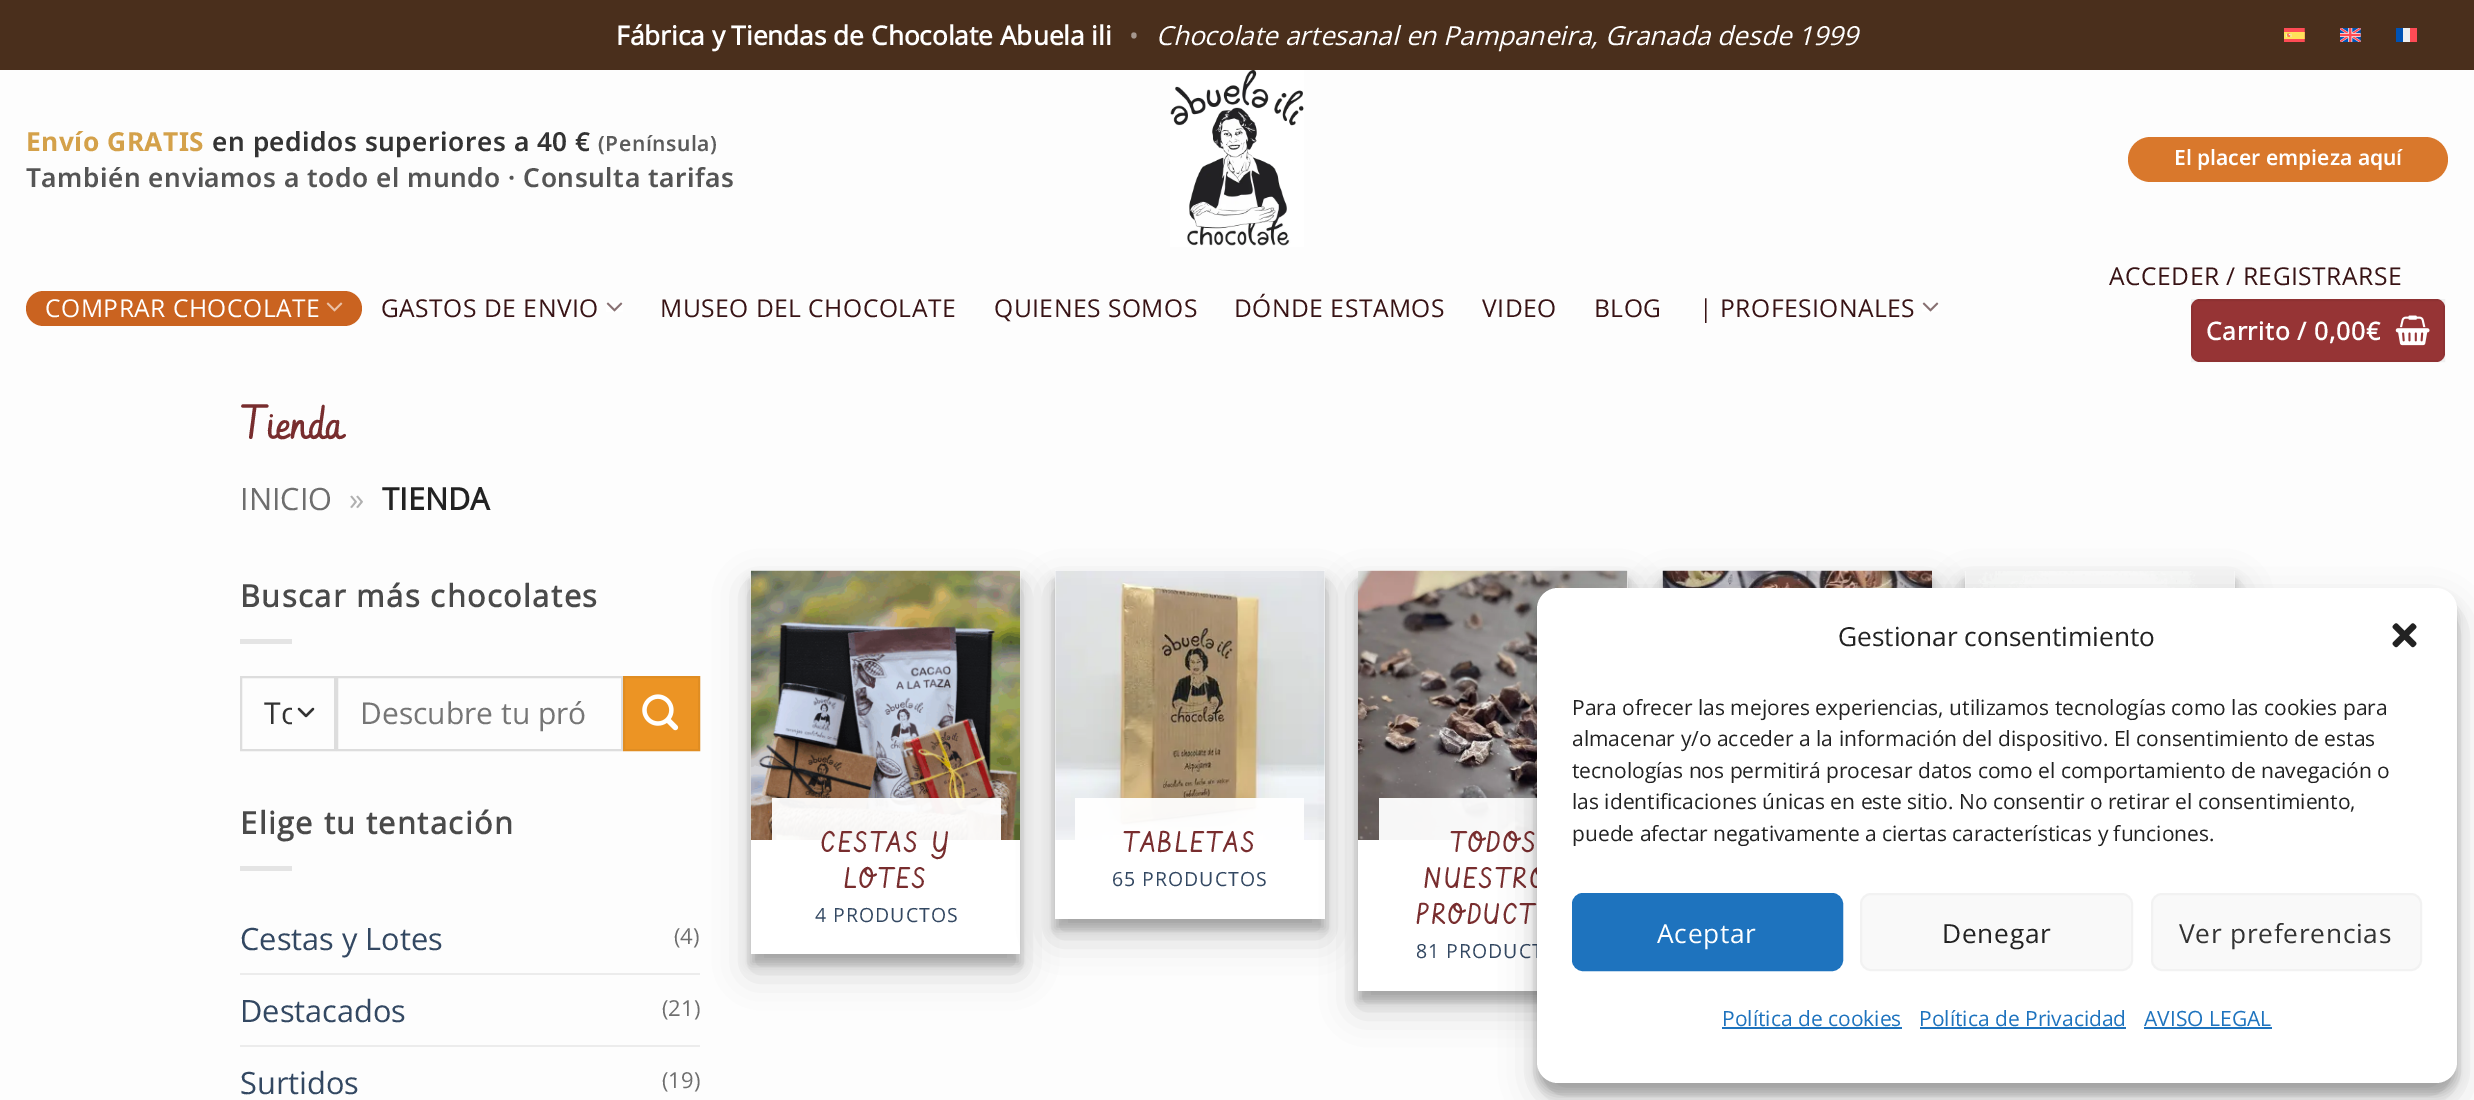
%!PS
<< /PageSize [2474 1100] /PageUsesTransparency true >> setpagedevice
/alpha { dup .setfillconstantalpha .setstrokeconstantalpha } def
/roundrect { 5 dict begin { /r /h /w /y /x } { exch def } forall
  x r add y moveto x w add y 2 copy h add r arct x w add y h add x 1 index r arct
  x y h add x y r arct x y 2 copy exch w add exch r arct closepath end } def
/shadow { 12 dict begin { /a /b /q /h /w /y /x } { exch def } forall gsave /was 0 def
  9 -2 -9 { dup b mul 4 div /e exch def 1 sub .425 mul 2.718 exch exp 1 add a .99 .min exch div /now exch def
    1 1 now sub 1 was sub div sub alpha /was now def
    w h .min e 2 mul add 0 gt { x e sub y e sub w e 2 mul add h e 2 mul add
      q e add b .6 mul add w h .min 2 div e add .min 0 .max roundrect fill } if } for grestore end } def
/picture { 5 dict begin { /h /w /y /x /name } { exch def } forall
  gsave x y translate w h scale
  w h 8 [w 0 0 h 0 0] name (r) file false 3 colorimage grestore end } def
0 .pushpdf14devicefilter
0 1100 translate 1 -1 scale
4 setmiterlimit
0.992 setgray
0 0 2474 1100 rectfill
0.29 0.184 0.11 setrgbcolor
0 0 2474 70 rectfill
/OpenSans-Bold [26.25 0 0 -26.25 0 0] selectfont
1 setgray
616 45 moveto (Fábrica y Tiendas de Chocolate Abuela ili) show
/OpenSans-Regular [26.25 0 0 -26.25 0 0] selectfont
0.647 0.592 0.557 setrgbcolor
1129 45 moveto (•) show
/OpenSans-Italic [26.25 0 0 -26.25 0 0] selectfont
1 setgray
1156 45 moveto (Chocolate artesanal en Pampaneira, Granada desde 1999) show
(img1.rgb) 2284 28 21 14 picture
(img2.rgb) 2340 28 21 14 picture
0 0.322 0.706 setrgbcolor
2396 28 7 14 rectfill
0.941 setgray
2403 28 7 14 rectfill
1 0.294 0.333 setrgbcolor
2410 28 7 14 rectfill
/NotoSans-Bold [26.25 0 0 -26.25 0 0] selectfont
0.831 0.631 0.29 setrgbcolor
26 151 moveto 0.53 0 (Envío GRATIS) ashow
/NotoSans-SemiBold [26.25 0 0 -26.25 0 0] selectfont
0.2 setgray
212 151 moveto 0.53 0 (en pedidos superiores a 40 €) ashow
/NotoSans-SemiBold [21 0 0 -21 0 0] selectfont
0.361 setgray
598 151 moveto 0.53 0 (\(Península\)) ashow
/NotoSans-SemiBold [26.25 0 0 -26.25 0 0] selectfont
0.333 setgray
26 187 moveto 0.53 0 (También enviamos a todo el mundo · Consulta tarifas) ashow
(img3.rgb) 1170 70 134 177 picture
0.851 0.471 0.173 setrgbcolor
2128 137 320 45 22.5 roundrect fill
/NotoSans-SemiBold [21 0 0 -21 0 0] selectfont
1 setgray
2174 165 moveto (El placer empieza aquí) show
0.792 0.388 0.125 setrgbcolor
26 291 336 35 17.5 roundrect fill
/OpenSans-Regular [24.6 0 0 -24.6 0 0] selectfont
1 setgray
45 317 moveto 0.5 0 (COMPRAR CHOCOLATE) ashow
(img4.rgb) 326 302 17 10 picture
0.22 0.075 0.082 setrgbcolor
381 317 moveto 0.5 0 (GASTOS DE ENVIO) ashow
(img5.rgb) 606 302 17 10 picture
660 317 moveto 0.5 0 (MUSEO DEL CHOCOLATE) ashow
994 317 moveto 0.5 0 (QUIENES SOMOS) ashow
1234 317 moveto 0.5 0 (DÓNDE ESTAMOS) ashow
1482 317 moveto 0.5 0 (VIDEO) ashow
1594 317 moveto 0.5 0 (BLOG) ashow
1699 317 moveto 0.5 0 (| PROFESIONALES) ashow
(img5.rgb) 1922 302 17 10 picture
2109 285 moveto 0.5 0 (ACCEDER / REGISTRARSE) ashow
0.588 0.204 0.208 setrgbcolor
2191 299 254 63 9 roundrect fill
0.05 alpha
0 setgray
2 setlinewidth
2192 300 252 61 rectstroke
/OpenSans-Bold [24.6 0 0 -24.6 0 0] selectfont
1 alpha
1 setgray
2206 340 moveto 0.75 0 (Carrito / 0,00€) ashow
(img6.rgb) 2395 315 35 31 picture
/Vibur-Regular [46 0 0 -46 0 0] selectfont
0.471 0.176 0.18 setrgbcolor
240 439 moveto (Tienda) show
/OpenSans-Regular [30.75 0 0 -30.75 0 0] selectfont
0.431 setgray
240 510 moveto (INICIO) show
0.69 setgray
349 510 moveto (») show
/OpenSans-Bold [30.75 0 0 -30.75 0 0] selectfont
0.133 setgray
382 510 moveto (TIENDA) show
0.29 setgray
240 607 moveto 1.5 0 (Buscar más chocolates) ashow
0.894 setgray
240 639 52 5 rectfill
0.2 setgray
2.3 setlinewidth
1 setlinecap
1 setlinejoin
newpath 299 709 moveto 306 716 lineto 313 709 lineto stroke
0.867 setgray
2 setlinewidth
0 setlinecap
0 setlinejoin
241 677 94 73 rectstroke
gsave
264 690 28 47 rectclip
/OpenSans-Regular [30 0 0 -30 0 0] selectfont
0.2 setgray
264 724 moveto (To) show
grestore
337 677 285 73 rectstroke
/OpenSans-Regular [30 0 0 -30 0 0] selectfont
0.459 setgray
360 724 moveto (Descubre tu pró) show
0.925 0.58 0.141 setrgbcolor
newpath 624 677 moveto 699 677 lineto 699 750 lineto 624 750 lineto closepath gsave fill grestore
0.878 0.553 0.133 setrgbcolor
stroke
(img7.rgb) 642 694 37 37 picture
/OpenSans-Bold [30.75 0 0 -30.75 0 0] selectfont
0.29 setgray
240 834 moveto 1.5 0 (Elige tu tentación) ashow
0.894 setgray
240 866 52 5 rectfill
/OpenSans-Regular [30.75 0 0 -30.75 0 0] selectfont
0.2 0.282 0.384 setrgbcolor
240 950 moveto (Cestas y Lotes) show
/OpenSans-Regular [22 0 0 -22 0 0] selectfont
0.431 setgray
674 944 moveto (\(4\)) show
0.925 setgray
240 973 460 2 rectfill
/OpenSans-Regular [30.75 0 0 -30.75 0 0] selectfont
0.2 0.282 0.384 setrgbcolor
240 1022 moveto (Destacados) show
/OpenSans-Regular [22 0 0 -22 0 0] selectfont
0.431 setgray
662 1016 moveto (\(21\)) show
0.925 setgray
240 1045 460 2 rectfill
/OpenSans-Regular [30.75 0 0 -30.75 0 0] selectfont
0.2 0.282 0.384 setrgbcolor
240 1094 moveto (Surtidos) show
/OpenSans-Regular [22 0 0 -22 0 0] selectfont
0.431 setgray
662 1088 moveto (\(19\)) show
0 setgray
751 581 269 383 0 5 0.22 shadow
751 588 269 383 0 17.5 0.19 shadow
1 setgray
751 840 269 114 rectfill
(img8.rgb) 750 570 271 270 picture
0.95 alpha
772 798 229 42 rectfill
/Vibur-Regular [27.75 0 0 -27.75 0 0] selectfont
1 alpha
0.471 0.176 0.18 setrgbcolor
821 852 moveto 1.5 0 (CESTAS Y) ashow
844 888 moveto 1.5 0 (LOTES) ashow
/OpenSans-Regular [19.5 0 0 -19.5 0 0] selectfont
0.2 0.282 0.384 setrgbcolor
815 922 moveto 1 0 (4 PRODUCTOS) ashow
0 setgray
1055 581 270 348 0 5 0.22 shadow
1055 588 270 348 0 17.5 0.19 shadow
1 setgray
1055 571 270 348 rectfill
(img9.rgb) 1055 570 270 270 picture
0.95 alpha
1075 798 229 42 rectfill
/Vibur-Regular [27.75 0 0 -27.75 0 0] selectfont
1 alpha
0.471 0.176 0.18 setrgbcolor
1123 852 moveto 1.5 0 (TABLETAS) ashow
/OpenSans-Regular [19.5 0 0 -19.5 0 0] selectfont
0.2 0.282 0.384 setrgbcolor
1112 886 moveto 1 0 (65 PRODUCTOS) ashow
0 setgray
1358 581 270 420 0 5 0.22 shadow
1358 588 270 420 0 17.5 0.19 shadow
1 setgray
1358 571 270 420 rectfill
(img10.rgb) 1358 570 270 270 picture
0.95 alpha
1379 798 158 42 rectfill
/Vibur-Regular [27.75 0 0 -27.75 0 0] selectfont
1 alpha
0.471 0.176 0.18 setrgbcolor
1450 852 moveto 1.5 0 (TODOS) ashow
1424 888 moveto 1.5 0 (NUESTRO) ashow
1416 924 moveto 1.5 0 (PRODUCT) ashow
/OpenSans-Regular [19.5 0 0 -19.5 0 0] selectfont
0.2 0.282 0.384 setrgbcolor
1416 958 moveto 1 0 (81 PRODUCT) ashow
0 setgray
1663 581 269 348 0 5 0.22 shadow
1663 588 269 348 0 17.5 0.19 shadow
(img11.rgb) 1662 570 270 18 picture
1965 581 270 348 0 5 0.22 shadow
1965 588 270 348 0 17.5 0.19 shadow
1 setgray
1965 571 270 17 rectfill
(img12.rgb) 1965 571 270 17 picture
0 setgray
1537 599 920 495 21 5 0.23 shadow
1537 606 920 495 21 17.5 0.19 shadow
1 setgray
1537 588 920 495 21 roundrect fill
/OpenSans-Regular [26.25 0 0 -26.25 0 0] selectfont
0.133 setgray
1838 646 moveto (Gestionar consentimiento) show
(img13.rgb) 2392 623 25 25 picture
/OpenSans-Regular [21 0 0 -21 0 0] selectfont
1572 715 moveto (Para ofrecer las mejores experiencias, utilizamos tecnologías como las cookies para) show
1572 746 moveto (almacenar y/o acceder a la información del dispositivo. El consentimiento de estas) show
1572 778 moveto (tecnologías nos permitirá procesar datos como el comportamiento de navegación o) show
1572 809 moveto (las identificaciones únicas en este sitio. No consentir o retirar el consentimiento,) show
1572 841 moveto (puede afectar negativamente a ciertas características y funciones.) show
0.118 0.451 0.745 setrgbcolor
1573 894 269 76 10 roundrect gsave fill grestore
stroke
/OpenSans-Regular [26.25 0 0 -26.25 0 0] selectfont
1 setgray
1657 943 moveto 0.75 0 (Aceptar) ashow
0.976 setgray
1861 894 271 76 10 roundrect gsave fill grestore
0.949 setgray
stroke
0.133 setgray
1942 943 moveto 0.75 0 (Denegar) ashow
0.976 setgray
2152 894 269 76 10 roundrect gsave fill grestore
0.949 setgray
stroke
0.2 setgray
2179 943 moveto 0.75 0 (Ver preferencias) ashow
/OpenSans-Regular [21 0 0 -21 0 0] selectfont
0.118 0.451 0.745 setrgbcolor
1722 1026 moveto (Política de cookies) show
1722 1027 180 2 rectfill
1919 1026 moveto (Política de Privacidad) show
1920 1027 206 2 rectfill
2144 1026 moveto (AVISO LEGAL) show
2144 1027 128 2 rectfill
.poppdf14devicefilter showpage
